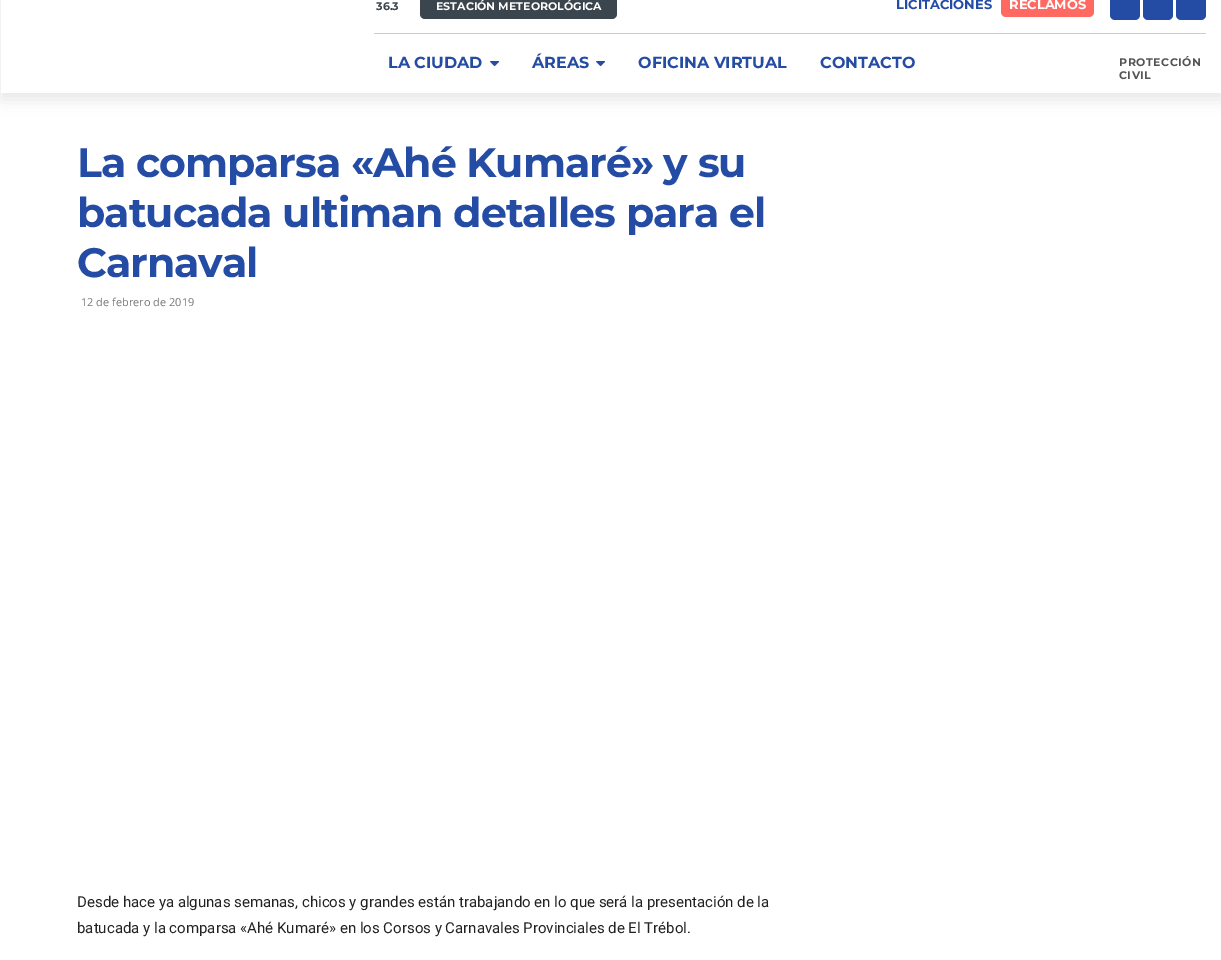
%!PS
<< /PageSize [1221 960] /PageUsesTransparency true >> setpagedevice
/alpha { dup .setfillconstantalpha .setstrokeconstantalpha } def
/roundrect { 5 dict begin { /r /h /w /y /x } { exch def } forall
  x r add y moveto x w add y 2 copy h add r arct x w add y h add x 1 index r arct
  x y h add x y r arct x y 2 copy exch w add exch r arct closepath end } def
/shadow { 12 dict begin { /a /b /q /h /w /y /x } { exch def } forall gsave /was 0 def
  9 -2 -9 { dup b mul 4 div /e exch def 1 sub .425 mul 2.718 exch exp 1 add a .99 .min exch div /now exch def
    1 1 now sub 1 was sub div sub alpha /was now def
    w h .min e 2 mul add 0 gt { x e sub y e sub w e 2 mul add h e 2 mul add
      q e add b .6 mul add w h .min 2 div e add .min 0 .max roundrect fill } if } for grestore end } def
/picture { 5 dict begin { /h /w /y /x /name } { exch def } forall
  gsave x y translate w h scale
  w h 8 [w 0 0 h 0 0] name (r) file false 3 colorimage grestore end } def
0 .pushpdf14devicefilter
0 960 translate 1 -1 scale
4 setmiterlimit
1 setgray
0 0 1221 960 rectfill
0.227 0.271 0.306 setrgbcolor
420 -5 197 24 5 roundrect fill
1 0.412 0.38 setrgbcolor
1001 -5 93 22 5 roundrect fill
0.141 0.298 0.643 setrgbcolor
1110 -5 30 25 5 roundrect fill
1143 -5 30 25 5 roundrect fill
1176 -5 30 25 5 roundrect fill
0.8 setgray
374 33 832 1 rectfill
(img1.rgb) 490 61 10 6 picture
(img1.rgb) 596 61 10 6 picture
gsave
newpath 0 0 moveto 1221 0 lineto 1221 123 lineto 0 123 lineto closepath 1 -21 moveto 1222 -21 lineto 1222 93 lineto 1 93 lineto closepath eoclip newpath
0 setgray
1 -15 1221 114 0 7.5 0.1 shadow
grestore
/Montserrat-Bold [11 0 0 -11 0 0] selectfont
0.227 0.271 0.306 setrgbcolor
376 10 moveto (36.3) show
1 setgray
436 10 moveto (ESTACIÓN METEOROLÓGICA) show
/Montserrat-Bold [13 0 0 -13 0 0] selectfont
0.141 0.298 0.643 setrgbcolor
896 9 moveto (LICITACIONES) show
1 setgray
1009 9 moveto (RECLAMOS) show
/Montserrat-Bold [16 0 0 -16 0 0] selectfont
0.141 0.298 0.643 setrgbcolor
388 68 moveto (LA CIUDAD) show
532 68 moveto (ÁREAS) show
638 68 moveto (OFICINA VIRTUAL) show
820 68 moveto (CONTACTO) show
/Montserrat-Bold [11 0 0 -11 0 0] selectfont
0.329 setgray
1119 66 moveto 0.5 0 (PROTECCIÓN) ashow
1119 79 moveto 0.5 0 (CIVIL) ashow
/Montserrat-Bold [41 0 0 -41 0 0] selectfont
0.141 0.298 0.643 setrgbcolor
77 177 moveto -1 0 (La comparsa «Ahé Kumaré» y su) ashow
77 227 moveto -1 0 (batucada ultiman detalles para el) ashow
77 277 moveto -1 0 (Carnaval) ashow
/OpenSans-Regular [11 0 0 -11 0 0] selectfont
0.463 setgray
81 306 moveto (12 de febrero de 2019) show
/Roboto-Regular [15 0 0 -15 0 0] selectfont
0.133 setgray
77 907 moveto (Desde hace ya algunas semanas, chicos y grandes están trabajando en lo que será la presentación de la) show
77 933 moveto (batucada y la comparsa «Ahé Kumaré» en los Corsos y Carnavales Provinciales de El Trébol.) show
.poppdf14devicefilter showpage
